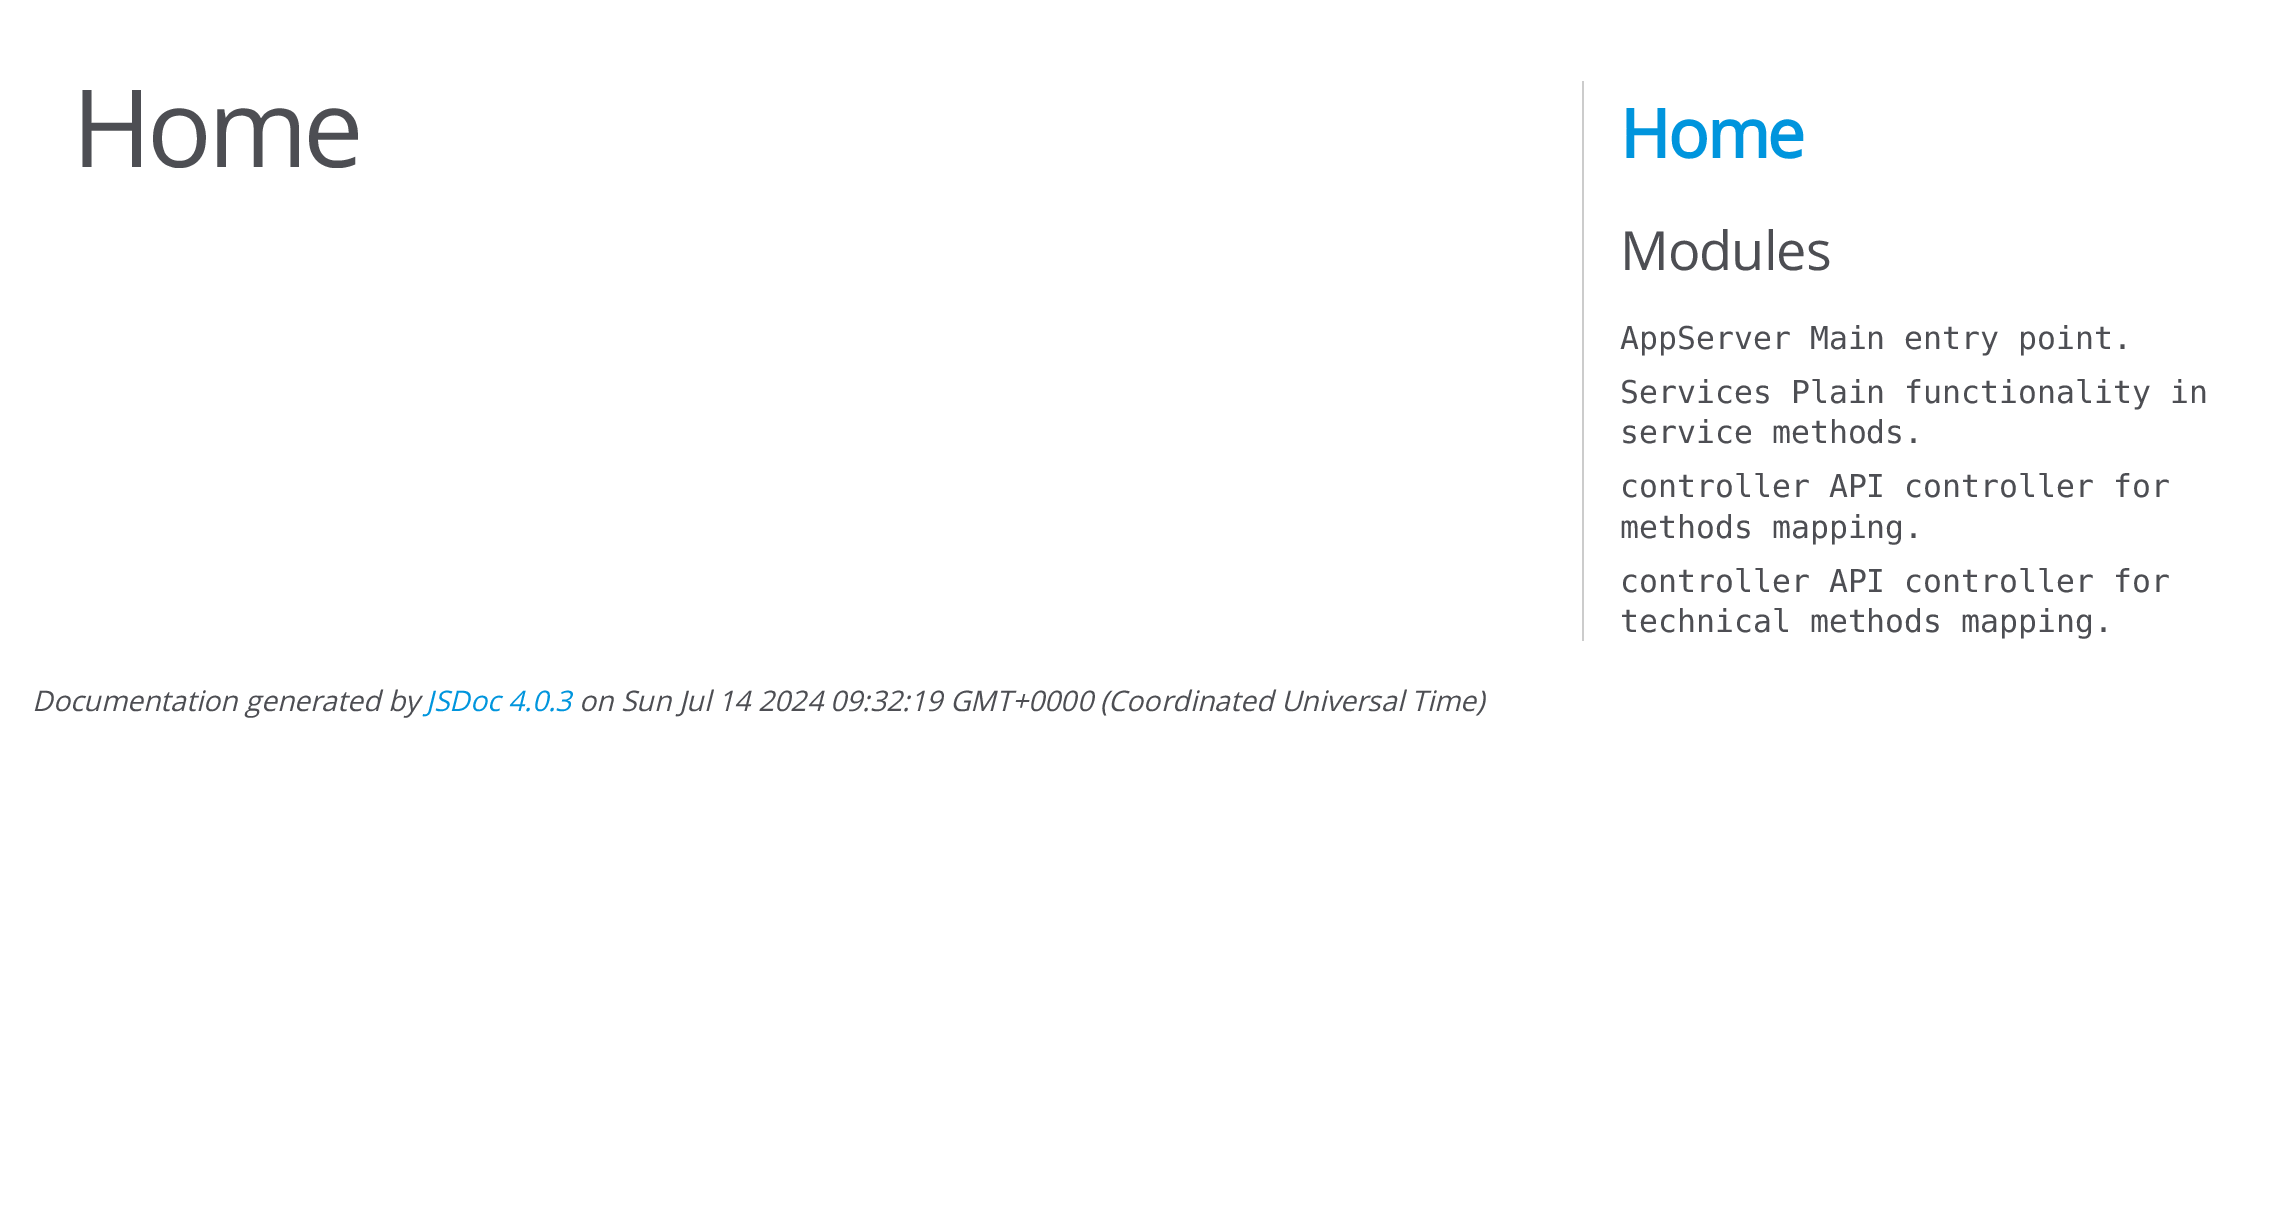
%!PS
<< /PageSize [2270 1232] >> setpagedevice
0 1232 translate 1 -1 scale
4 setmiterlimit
1 setgray
0 0 2270 1232 rectfill
/OpenSans-Regular [108 0 0 -108 0 0] selectfont
0.302 0.306 0.325 setrgbcolor
72 167 moveto -4.5 0 (Home) ashow
0.8 setgray
1582 81 2 560 rectfill
/OpenSans-Bold [67.5 0 0 -67.5 0 0] selectfont
0 0.584 0.867 setrgbcolor
1620 158 moveto -2 0 (Home) ashow
/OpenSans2-Regular [54 0 0 -54 0 0] selectfont
0.302 0.306 0.325 setrgbcolor
1620 270 moveto -1 0 (Modules) ashow
/DejaVuSansMono-Regular [31.5 0 0 -31.5 0 0] selectfont
1620 349 moveto (AppServer Main entry point.) show
1620 403 moveto (Services Plain functionality in) show
1620 443 moveto (service methods.) show
1620 497 moveto (controller API controller for) show
1620 538 moveto (methods mapping.) show
1620 592 moveto (controller API controller for) show
1620 632 moveto (technical methods mapping.) show
/OpenSans-Italic [28.35 0 0 -28.35 0 0] selectfont
32 711 moveto (Documentation generated by) show
0 0.584 0.867 setrgbcolor
426 711 moveto (JSDoc 4.0.3) show
0.302 0.306 0.325 setrgbcolor
579 711 moveto (on Sun Jul 14 2024 09:32:19 GMT+0000 \(Coordinated Universal Time\)) show
showpage
